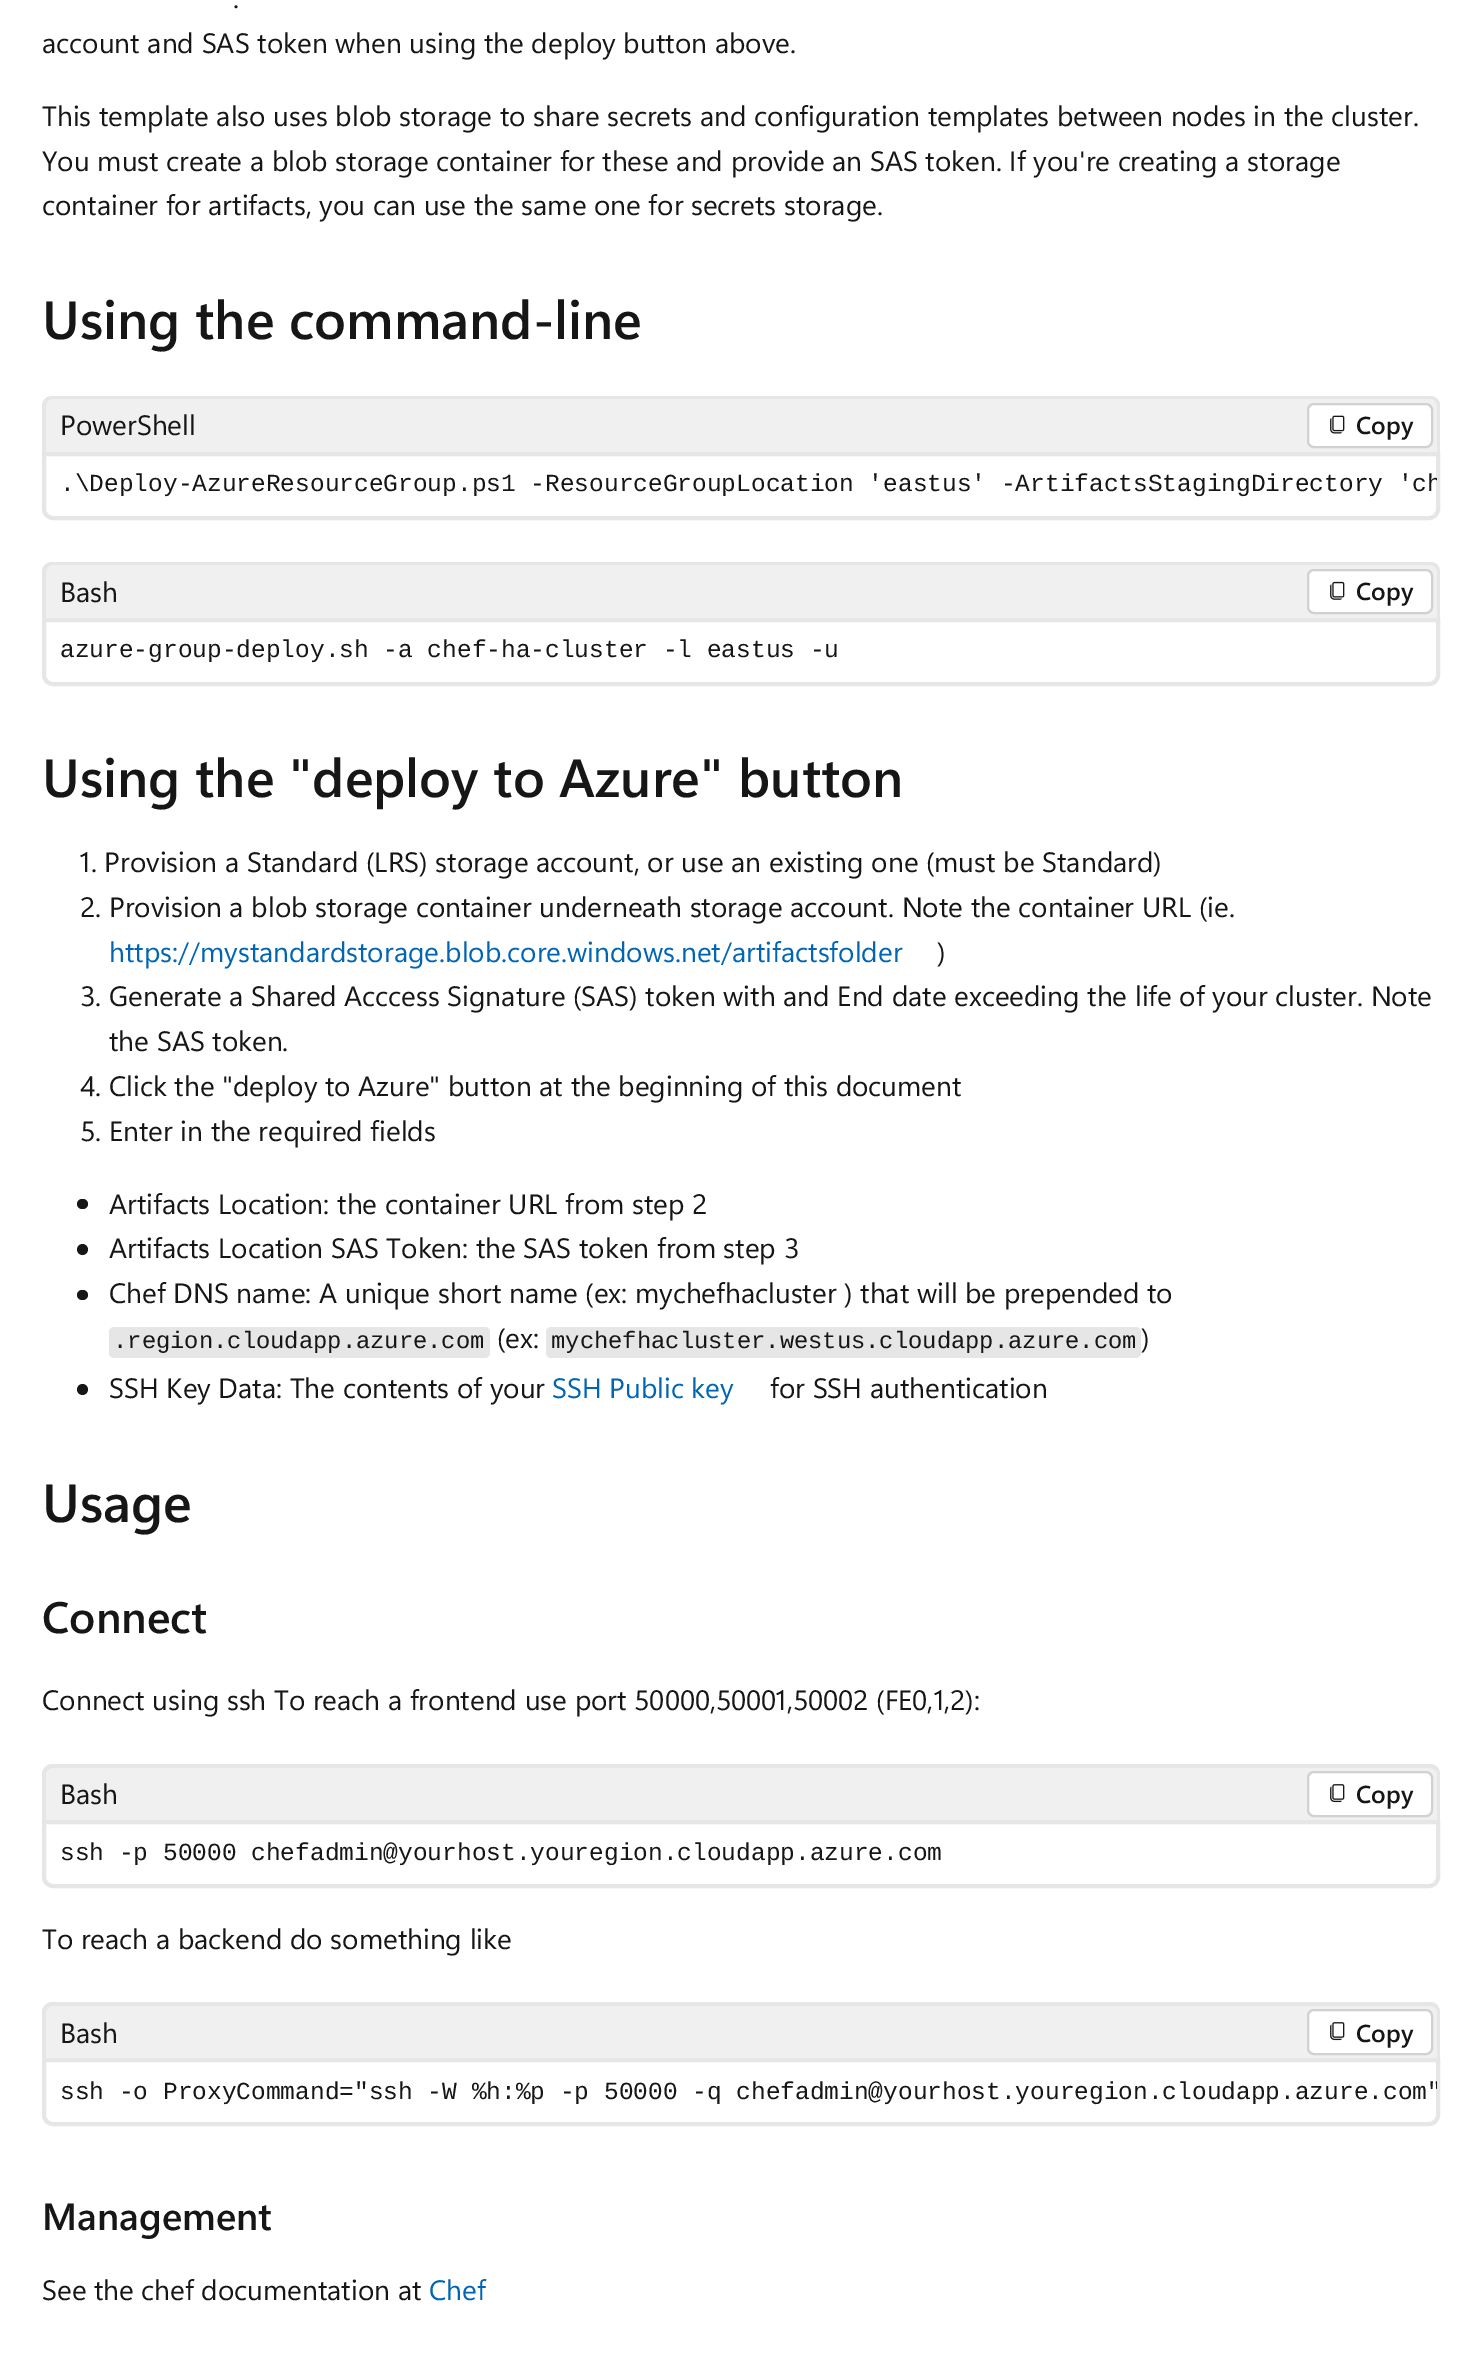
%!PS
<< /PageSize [1482 2379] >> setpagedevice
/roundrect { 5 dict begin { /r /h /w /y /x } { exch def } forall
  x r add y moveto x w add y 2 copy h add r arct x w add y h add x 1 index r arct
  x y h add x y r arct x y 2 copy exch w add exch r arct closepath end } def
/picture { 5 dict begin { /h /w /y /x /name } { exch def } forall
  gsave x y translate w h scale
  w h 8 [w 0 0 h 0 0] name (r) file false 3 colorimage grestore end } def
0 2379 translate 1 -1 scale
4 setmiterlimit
1 setgray
0 0 1482 2379 rectfill
/SegoeUI-Regular [28 0 0 -28 0 0] selectfont
0.086 setgray
233 8 moveto (.) show
42 53 moveto (account and SAS token when using the deploy button above.) show
42 126 moveto (This template also uses blob storage to share secrets and configuration templates between nodes in the cluster.) show
42 171 moveto (You must create a blob storage container for these and provide an SAS token. If you're creating a storage) show
42 215 moveto (container for artifacts, you can use the same one for secrets storage.) show
/SegoeUI-SemiBold [53.6 0 0 -53.6 0 0] selectfont
42 339 moveto (Using the command-line) show
0.941 setgray
newpath 53 396 moveto 1429 396 lineto 1435 396 1440 401 1440 407 curveto 1440 452 lineto 42 452 lineto 42 407 lineto 42 401 47 396 53 396 curveto closepath fill
0.902 setgray
newpath 52 396 moveto 1430 396 lineto 1436 396 1440 400 1440 406 curveto 1440 452 lineto 42 452 lineto 42 406 lineto 42 400 47 396 52 396 curveto closepath 52 399 moveto 1430 399 lineto 1434 399 1437 402 1437 406 curveto 1437 452 lineto 46 452 lineto 46 406 lineto 46 402 49 399 52 399 curveto closepath eofill
/SegoeUI-Regular [28 0 0 -28 0 0] selectfont
0.086 setgray
60 435 moveto (PowerShell) show
1 setgray
1308 404 124 43 6 roundrect gsave fill grestore
0.82 setgray
2 setlinewidth
stroke
(img1.rgb) 1330 415 15 19 picture
/SegoeUI-SemiBold [24.5 0 0 -24.5 0 0] selectfont
0.086 setgray
1356 434 moveto (Copy) show
0.902 setgray
4 setlinewidth
newpath 44 454 moveto 1438 454 lineto 1438 509 lineto 1438 514 1434 518 1429 518 curveto 53 518 lineto 48 518 44 514 44 509 curveto closepath stroke
gsave
newpath 46 455 moveto 1437 455 lineto 1437 509 lineto 1437 513 1434 516 1430 516 curveto 53 516 lineto 49 516 46 513 46 509 curveto closepath clip newpath
/LiberationMono-Regular [24.5 0 0 -24.5 0 0] selectfont
0.086 setgray
60 491 moveto (.\\Deploy-AzureResourceGroup.ps1 -ResourceGroupLocation 'eastus' -ArtifactsStagingDirectory 'ch) show
grestore
0.941 setgray
newpath 53 562 moveto 1429 562 lineto 1435 562 1440 567 1440 573 curveto 1440 618 lineto 42 618 lineto 42 573 lineto 42 567 47 562 53 562 curveto closepath fill
0.902 setgray
newpath 52 562 moveto 1430 562 lineto 1436 562 1440 566 1440 572 curveto 1440 618 lineto 42 618 lineto 42 572 lineto 42 566 47 562 52 562 curveto closepath 52 565 moveto 1430 565 lineto 1434 565 1437 568 1437 572 curveto 1437 618 lineto 46 618 lineto 46 572 lineto 46 568 49 565 52 565 curveto closepath eofill
/SegoeUI-Regular [28 0 0 -28 0 0] selectfont
0.086 setgray
60 602 moveto (Bash) show
1 setgray
1308 570 124 43 6 roundrect gsave fill grestore
0.82 setgray
2 setlinewidth
stroke
(img2.rgb) 1330 581 15 19 picture
/SegoeUI-SemiBold [24.5 0 0 -24.5 0 0] selectfont
0.086 setgray
1356 600 moveto (Copy) show
0.902 setgray
4 setlinewidth
newpath 44 620 moveto 1438 620 lineto 1438 675 lineto 1438 680 1434 684 1429 684 curveto 53 684 lineto 48 684 44 680 44 675 curveto closepath stroke
/LiberationMono-Regular [24.5 0 0 -24.5 0 0] selectfont
0.086 setgray
60 657 moveto (azure-group-deploy.sh -a chef-ha-cluster -l eastus -u) show
/SegoeUI-SemiBold [53.6 0 0 -53.6 0 0] selectfont
42 797 moveto (Using the "deploy to Azure" button) show
/SegoeUI-Regular [28 0 0 -28 0 0] selectfont
80 872 moveto (1. Provision a Standard \(LRS\) storage account, or use an existing one \(must be Standard\)) show
80 917 moveto (2. Provision a blob storage container underneath storage account. Note the container URL \(ie.) show
0 0.396 0.702 setrgbcolor
109 962 moveto (https://mystandardstorage.blob.core.windows.net/artifactsfolder) show
0.086 setgray
937 962 moveto (\)) show
80 1006 moveto (3. Generate a Shared Acccess Signature \(SAS\) token with and End date exceeding the life of your cluster. Note) show
109 1051 moveto (the SAS token.) show
80 1096 moveto (4. Click the "deploy to Azure" button at the beginning of this document) show
80 1141 moveto (5. Enter in the required fields) show
77 1199 11 10 5 roundrect fill
109 1214 moveto (Artifacts Location: the container URL from step 2) show
newpath 82.5 1249.5 5.5 0 360 arc closepath fill
109 1258 moveto (Artifacts Location SAS Token: the SAS token from step 3) show
77 1290 11 10 5 roundrect fill
109 1303 moveto (Chef DNS name: A unique short name \(ex: mychefhacluster \) that will be prepended to) show
0.902 setgray
109 1327 381 31 5 roundrect fill
/LiberationMono-Regular [23.8 0 0 -23.8 0 0] selectfont
0.086 setgray
113 1348 moveto (.region.cloudapp.azure.com) show
/SegoeUI-Regular [28 0 0 -28 0 0] selectfont
497 1348 moveto (\(ex:) show
0.902 setgray
546 1327 595 31 5 roundrect fill
/LiberationMono-Regular [23.8 0 0 -23.8 0 0] selectfont
0.086 setgray
551 1348 moveto (mychefhacluster.westus.cloudapp.azure.com) show
/SegoeUI-Regular [28 0 0 -28 0 0] selectfont
1141 1348 moveto (\)) show
newpath 82.5 1389.5 5.5 0 360 arc closepath fill
109 1398 moveto (SSH Key Data: The contents of your) show
0 0.396 0.702 setrgbcolor
552 1398 moveto (SSH Public key) show
0.086 setgray
770 1398 moveto (for SSH authentication) show
/SegoeUI-SemiBold [53.6 0 0 -53.6 0 0] selectfont
42 1522 moveto (Usage) show
/SegoeUI-SemiBold [44 0 0 -44 0 0] selectfont
42 1633 moveto (Connect) show
/SegoeUI-Regular [28 0 0 -28 0 0] selectfont
42 1710 moveto (Connect using ssh To reach a frontend use port 50000,50001,50002 \(FE0,1,2\):) show
0.941 setgray
newpath 53 1764 moveto 1429 1764 lineto 1435 1764 1440 1769 1440 1775 curveto 1440 1820 lineto 42 1820 lineto 42 1775 lineto 42 1769 47 1764 53 1764 curveto closepath fill
0.902 setgray
newpath 52 1764 moveto 1430 1764 lineto 1436 1764 1440 1769 1440 1774 curveto 1440 1820 lineto 42 1820 lineto 42 1774 lineto 42 1769 47 1764 52 1764 curveto closepath 52 1768 moveto 1430 1768 lineto 1434 1768 1437 1771 1437 1774 curveto 1437 1820 lineto 46 1820 lineto 46 1774 lineto 46 1771 49 1768 52 1768 curveto closepath eofill
0.086 setgray
60 1804 moveto (Bash) show
1 setgray
1308 1772 124 44 6 roundrect gsave fill grestore
0.82 setgray
2 setlinewidth
stroke
(img3.rgb) 1330 1784 15 19 picture
/SegoeUI-SemiBold [24.5 0 0 -24.5 0 0] selectfont
0.086 setgray
1356 1803 moveto (Copy) show
0.902 setgray
4 setlinewidth
newpath 44 1822 moveto 1438 1822 lineto 1438 1877 lineto 1438 1882 1434 1886 1429 1886 curveto 53 1886 lineto 48 1886 44 1882 44 1877 curveto closepath stroke
/LiberationMono-Regular [24.5 0 0 -24.5 0 0] selectfont
0.086 setgray
60 1860 moveto (ssh -p 50000 chefadmin@yourhost.youregion.cloudapp.azure.com) show
/SegoeUI-Regular [28 0 0 -28 0 0] selectfont
42 1949 moveto (To reach a backend do something like) show
0.941 setgray
newpath 53 2002 moveto 1429 2002 lineto 1435 2002 1440 2007 1440 2013 curveto 1440 2058 lineto 42 2058 lineto 42 2013 lineto 42 2007 47 2002 53 2002 curveto closepath fill
0.902 setgray
newpath 52 2002 moveto 1430 2002 lineto 1436 2002 1440 2007 1440 2012 curveto 1440 2058 lineto 42 2058 lineto 42 2012 lineto 42 2007 47 2002 52 2002 curveto closepath 52 2006 moveto 1430 2006 lineto 1434 2006 1437 2009 1437 2012 curveto 1437 2058 lineto 46 2058 lineto 46 2012 lineto 46 2009 49 2006 52 2006 curveto closepath eofill
0.086 setgray
60 2043 moveto (Bash) show
1 setgray
1308 2010 124 44 6 roundrect gsave fill grestore
0.82 setgray
2 setlinewidth
stroke
(img3.rgb) 1330 2022 15 19 picture
/SegoeUI-SemiBold [24.5 0 0 -24.5 0 0] selectfont
0.086 setgray
1356 2042 moveto (Copy) show
0.902 setgray
4 setlinewidth
newpath 44 2060 moveto 1438 2060 lineto 1438 2115 lineto 1438 2120 1434 2124 1429 2124 curveto 53 2124 lineto 48 2124 44 2120 44 2115 curveto closepath stroke
gsave
newpath 46 2062 moveto 1437 2062 lineto 1437 2116 lineto 1437 2120 1434 2123 1430 2123 curveto 53 2123 lineto 49 2123 46 2120 46 2116 curveto closepath clip newpath
/LiberationMono-Regular [24.5 0 0 -24.5 0 0] selectfont
0.086 setgray
60 2099 moveto (ssh -o ProxyCommand="ssh -W %h:%p -p 50000 -q chefadmin@yourhost.youregion.cloudapp.azure.com") show
grestore
/SegoeUI-SemiBold [38 0 0 -38 0 0] selectfont
0.086 setgray
42 2230 moveto (Management) show
/SegoeUI-Regular [28 0 0 -28 0 0] selectfont
42 2300 moveto (See the chef documentation at) show
0 0.396 0.702 setrgbcolor
429 2300 moveto (Chef) show
showpage
